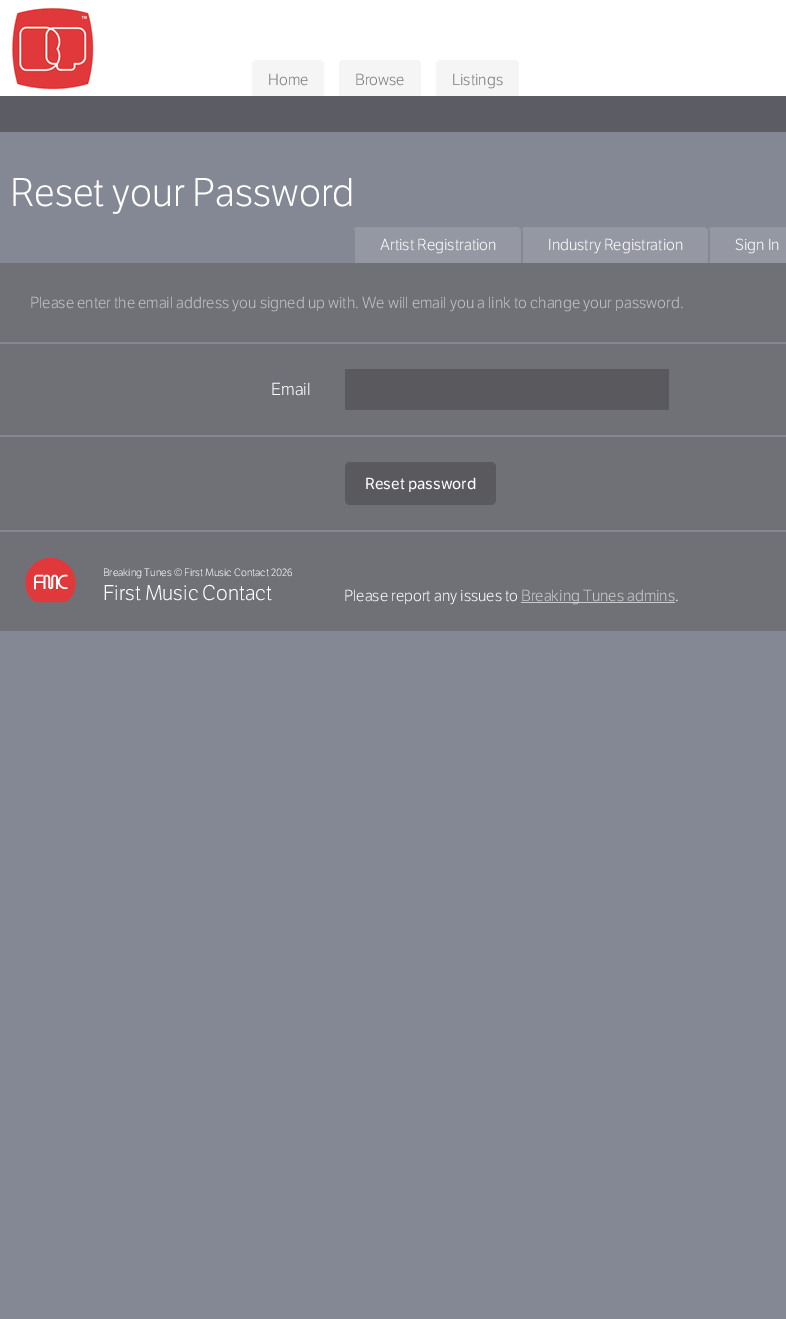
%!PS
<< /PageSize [786 1319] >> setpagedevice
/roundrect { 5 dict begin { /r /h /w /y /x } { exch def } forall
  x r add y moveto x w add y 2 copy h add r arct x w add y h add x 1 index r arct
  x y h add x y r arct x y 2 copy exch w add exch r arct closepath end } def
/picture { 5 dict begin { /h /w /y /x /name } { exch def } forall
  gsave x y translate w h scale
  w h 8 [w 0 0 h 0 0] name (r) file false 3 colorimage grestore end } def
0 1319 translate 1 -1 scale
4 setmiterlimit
0.518 0.529 0.58 setrgbcolor
0 0 786 1319 rectfill
(img1.rgb) 0 0 786 132 picture
(img2.rgb) 12 8 82 82 picture
0.965 0.961 0.961 setrgbcolor
newpath 257 60 moveto 319 60 lineto 322 60 324 62 324 65 curveto 324 96 lineto 252 96 lineto 252 65 lineto 252 62 254 60 257 60 curveto closepath fill
newpath 257 60 moveto 319 60 lineto 322 60 324 62 324 65 curveto 324 96 lineto 252 96 lineto 252 65 lineto 252 62 254 60 257 60 curveto closepath 257 61 moveto 319 61 lineto 321 61 323 63 323 65 curveto 323 96 lineto 253 96 lineto 253 65 lineto 253 63 255 61 257 61 curveto closepath eofill
/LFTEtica-Light [15.6 0 0 -15.6 0 0] selectfont
0.486 0.482 0.471 setrgbcolor
268 85 moveto (Home) show
0.965 0.961 0.961 setrgbcolor
newpath 344 60 moveto 416 60 lineto 419 60 421 62 421 65 curveto 421 96 lineto 339 96 lineto 339 65 lineto 339 62 341 60 344 60 curveto closepath fill
newpath 344 60 moveto 416 60 lineto 419 60 421 62 421 65 curveto 421 96 lineto 339 96 lineto 339 65 lineto 339 62 341 60 344 60 curveto closepath 344 61 moveto 416 61 lineto 418 61 420 63 420 65 curveto 420 96 lineto 340 96 lineto 340 65 lineto 340 63 342 61 344 61 curveto closepath eofill
0.486 0.482 0.471 setrgbcolor
355 85 moveto (Browse) show
0.965 0.961 0.961 setrgbcolor
newpath 441 60 moveto 514 60 lineto 517 60 519 62 519 65 curveto 519 96 lineto 436 96 lineto 436 65 lineto 436 62 438 60 441 60 curveto closepath fill
newpath 441 60 moveto 514 60 lineto 517 60 519 62 519 65 curveto 519 96 lineto 436 96 lineto 436 65 lineto 436 62 438 60 441 60 curveto closepath 441 61 moveto 514 61 lineto 516 61 518 63 518 65 curveto 518 96 lineto 437 96 lineto 437 65 lineto 437 63 439 61 441 61 curveto closepath eofill
0.486 0.482 0.471 setrgbcolor
452 85 moveto (Listings) show
/LFTEtica-Light [39 0 0 -39 0 0] selectfont
1 setgray
10 206 moveto (Reset your Password) show
0.584 0.592 0.635 setrgbcolor
newpath 358 227 moveto 516 227 lineto 519 227 521 229 521 232 curveto 521 263 lineto 353 263 lineto 353 232 lineto 353 229 355 227 358 227 curveto closepath fill
0.518 0.529 0.58 setrgbcolor
353 230 2 33 rectfill
/LFTEtica-Light [15.6 0 0 -15.6 0 0] selectfont
1 setgray
380 250 moveto (Artist Registration) show
0.584 0.592 0.635 setrgbcolor
newpath 526 227 moveto 703 227 lineto 706 227 708 229 708 232 curveto 708 263 lineto 521 263 lineto 521 232 lineto 521 229 523 227 526 227 curveto closepath fill
0.518 0.529 0.58 setrgbcolor
521 230 2 33 rectfill
1 setgray
548 250 moveto (Industry Registration) show
0.584 0.592 0.635 setrgbcolor
newpath 713 227 moveto 786 227 lineto 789 227 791 229 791 232 curveto 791 263 lineto 708 263 lineto 708 232 lineto 708 229 710 227 713 227 curveto closepath fill
0.518 0.529 0.58 setrgbcolor
708 230 2 33 rectfill
1 setgray
735 250 moveto (Sign In) show
0.435 0.443 0.467 setrgbcolor
0 263 786 267 rectfill
0.518 0.529 0.58 setrgbcolor
0 342 786 2 rectfill
0.765 0.765 0.78 setrgbcolor
30 308 moveto (Please enter the email address you signed up with. We will email you a link to change your password.) show
0.518 0.529 0.58 setrgbcolor
0 435 786 2 rectfill
/LFTEtica-Light [17 0 0 -17 0 0] selectfont
1 setgray
271 395 moveto (Email) show
0.353 0.353 0.369 setrgbcolor
345 369 324 41 rectfill
345 462 151 43 5 roundrect fill
/LFTEtica-Regular [15.6 0 0 -15.6 0 0] selectfont
1 setgray
365 489 moveto (Reset password) show
0.435 0.443 0.467 setrgbcolor
0 532 786 99 rectfill
(img3.rgb) 25 557 51 46 picture
/LFTEtica-Light [10.4 0 0 -10.4 0 0] selectfont
1 setgray
103 576 moveto (Breaking Tunes © First Music Contact 2026) show
/LFTEtica-Light [20.75 0 0 -20.75 0 0] selectfont
103 600 moveto (First Music Contact) show
/LFTEtica-Light [15.6 0 0 -15.6 0 0] selectfont
344 601 moveto (Please report any issues to) show
0.8 setgray
521 602 154 1 rectfill
521 601 moveto (Breaking Tunes admins) show
1 setgray
675 601 moveto (.) show
showpage
